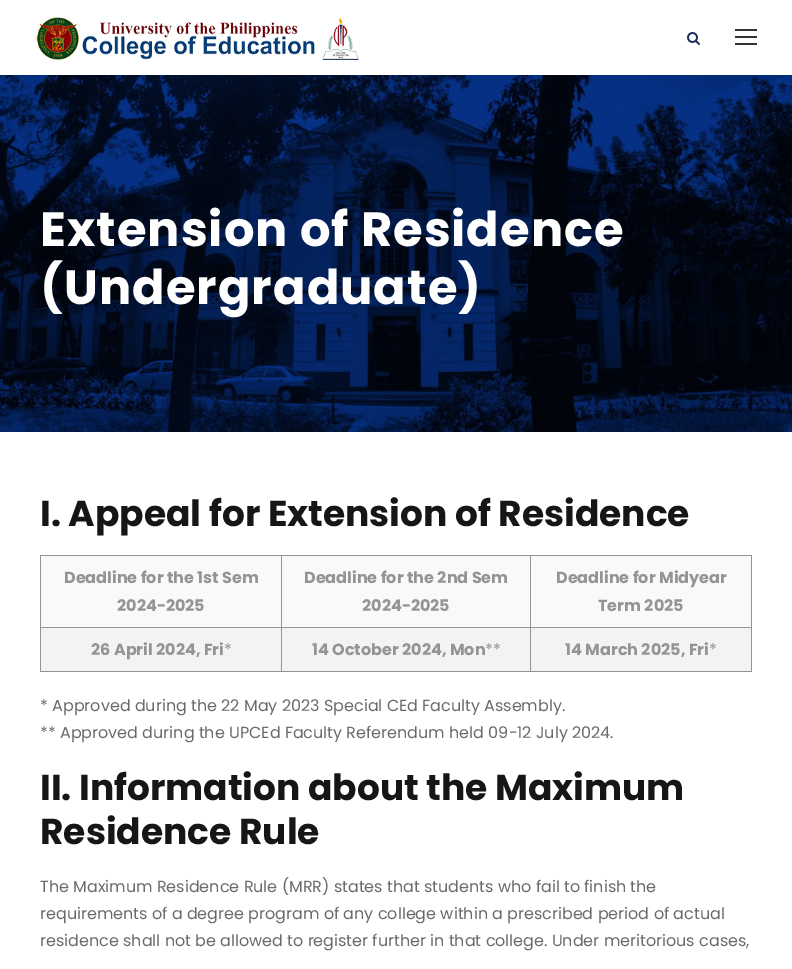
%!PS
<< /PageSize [792 969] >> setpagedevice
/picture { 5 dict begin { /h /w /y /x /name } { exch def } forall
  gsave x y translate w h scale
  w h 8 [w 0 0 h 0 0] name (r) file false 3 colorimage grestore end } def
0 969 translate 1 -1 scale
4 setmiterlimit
1 setgray
0 0 792 969 rectfill
(img1.rgb) 36 17 323 43 picture
(img2.rgb) 687 32 13 13 picture
0.2 setgray
735 29 22 2 rectfill
735 36 22 2 rectfill
735 43 22 2 rectfill
(img3.rgb) 0 75 792 357 picture
/Poppins-Bold [48 0 0 -48 0 0] selectfont
1 setgray
40 246 moveto 1 0 (Extension of Residence) ashow
40 304 moveto 1 0 (\(Undergraduate\)) ashow
/Poppins-Bold [36 0 0 -36 0 0] selectfont
0.086 setgray
40 526 moveto (I. Appeal for Extension of Residence) show
0.976 setgray
41 556 710 71 rectfill
0.58 setgray
530 555 222 1 rectfill
530 627 222 1 rectfill
0.953 setgray
41 628 710 43 rectfill
0.58 setgray
751 627 1 45 rectfill
530 671 222 1 rectfill
530 627 1 45 rectfill
281 627 250 1 rectfill
530 555 1 73 rectfill
281 555 250 1 rectfill
281 671 250 1 rectfill
281 627 1 45 rectfill
40 627 242 1 rectfill
281 555 1 73 rectfill
40 555 242 1 rectfill
40 671 242 1 rectfill
40 627 1 45 rectfill
40 555 1 73 rectfill
/Poppins-Bold [16 0 0 -16 0 0] selectfont
64 583 moveto (Deadline for the 1st Sem) show
117 611 moveto (2024-2025) show
304 583 moveto (Deadline for the 2nd Sem) show
362 611 moveto (2024-2025) show
751 555 1 73 rectfill
556 583 moveto (Deadline for Midyear) show
598 611 moveto (Term 2025) show
91 655 moveto (26 April 2024, Fri) show
/Poppins-Regular [16 0 0 -16 0 0] selectfont
224 655 moveto (*) show
/Poppins-Bold [16 0 0 -16 0 0] selectfont
312 655 moveto (14 October 2024, Mon) show
/Poppins-Regular [16 0 0 -16 0 0] selectfont
485 655 moveto (**) show
/Poppins-Bold [16 0 0 -16 0 0] selectfont
565 655 moveto (14 March 2025, Fri) show
/Poppins-Regular [16 0 0 -16 0 0] selectfont
709 655 moveto (*) show
0.42 setgray
40 711 moveto (* Approved during the 22 May 2023 Special CEd Faculty Assembly.) show
40 738 moveto (** Approved during the UPCEd Faculty Referendum held 09-12 July 2024.) show
/Poppins-Bold [36 0 0 -36 0 0] selectfont
0.086 setgray
40 800 moveto (II. Information about the Maximum) show
40 844 moveto (Residence Rule) show
/Poppins-Regular [16 0 0 -16 0 0] selectfont
0.42 setgray
40 892 moveto (The Maximum Residence Rule \(MRR\) states that students who fail to finish the) show
40 919 moveto (requirements of a degree program of any college within a prescribed period of actual) show
40 946 moveto (residence shall not be allowed to register further in that college. Under meritorious cases,) show
showpage
